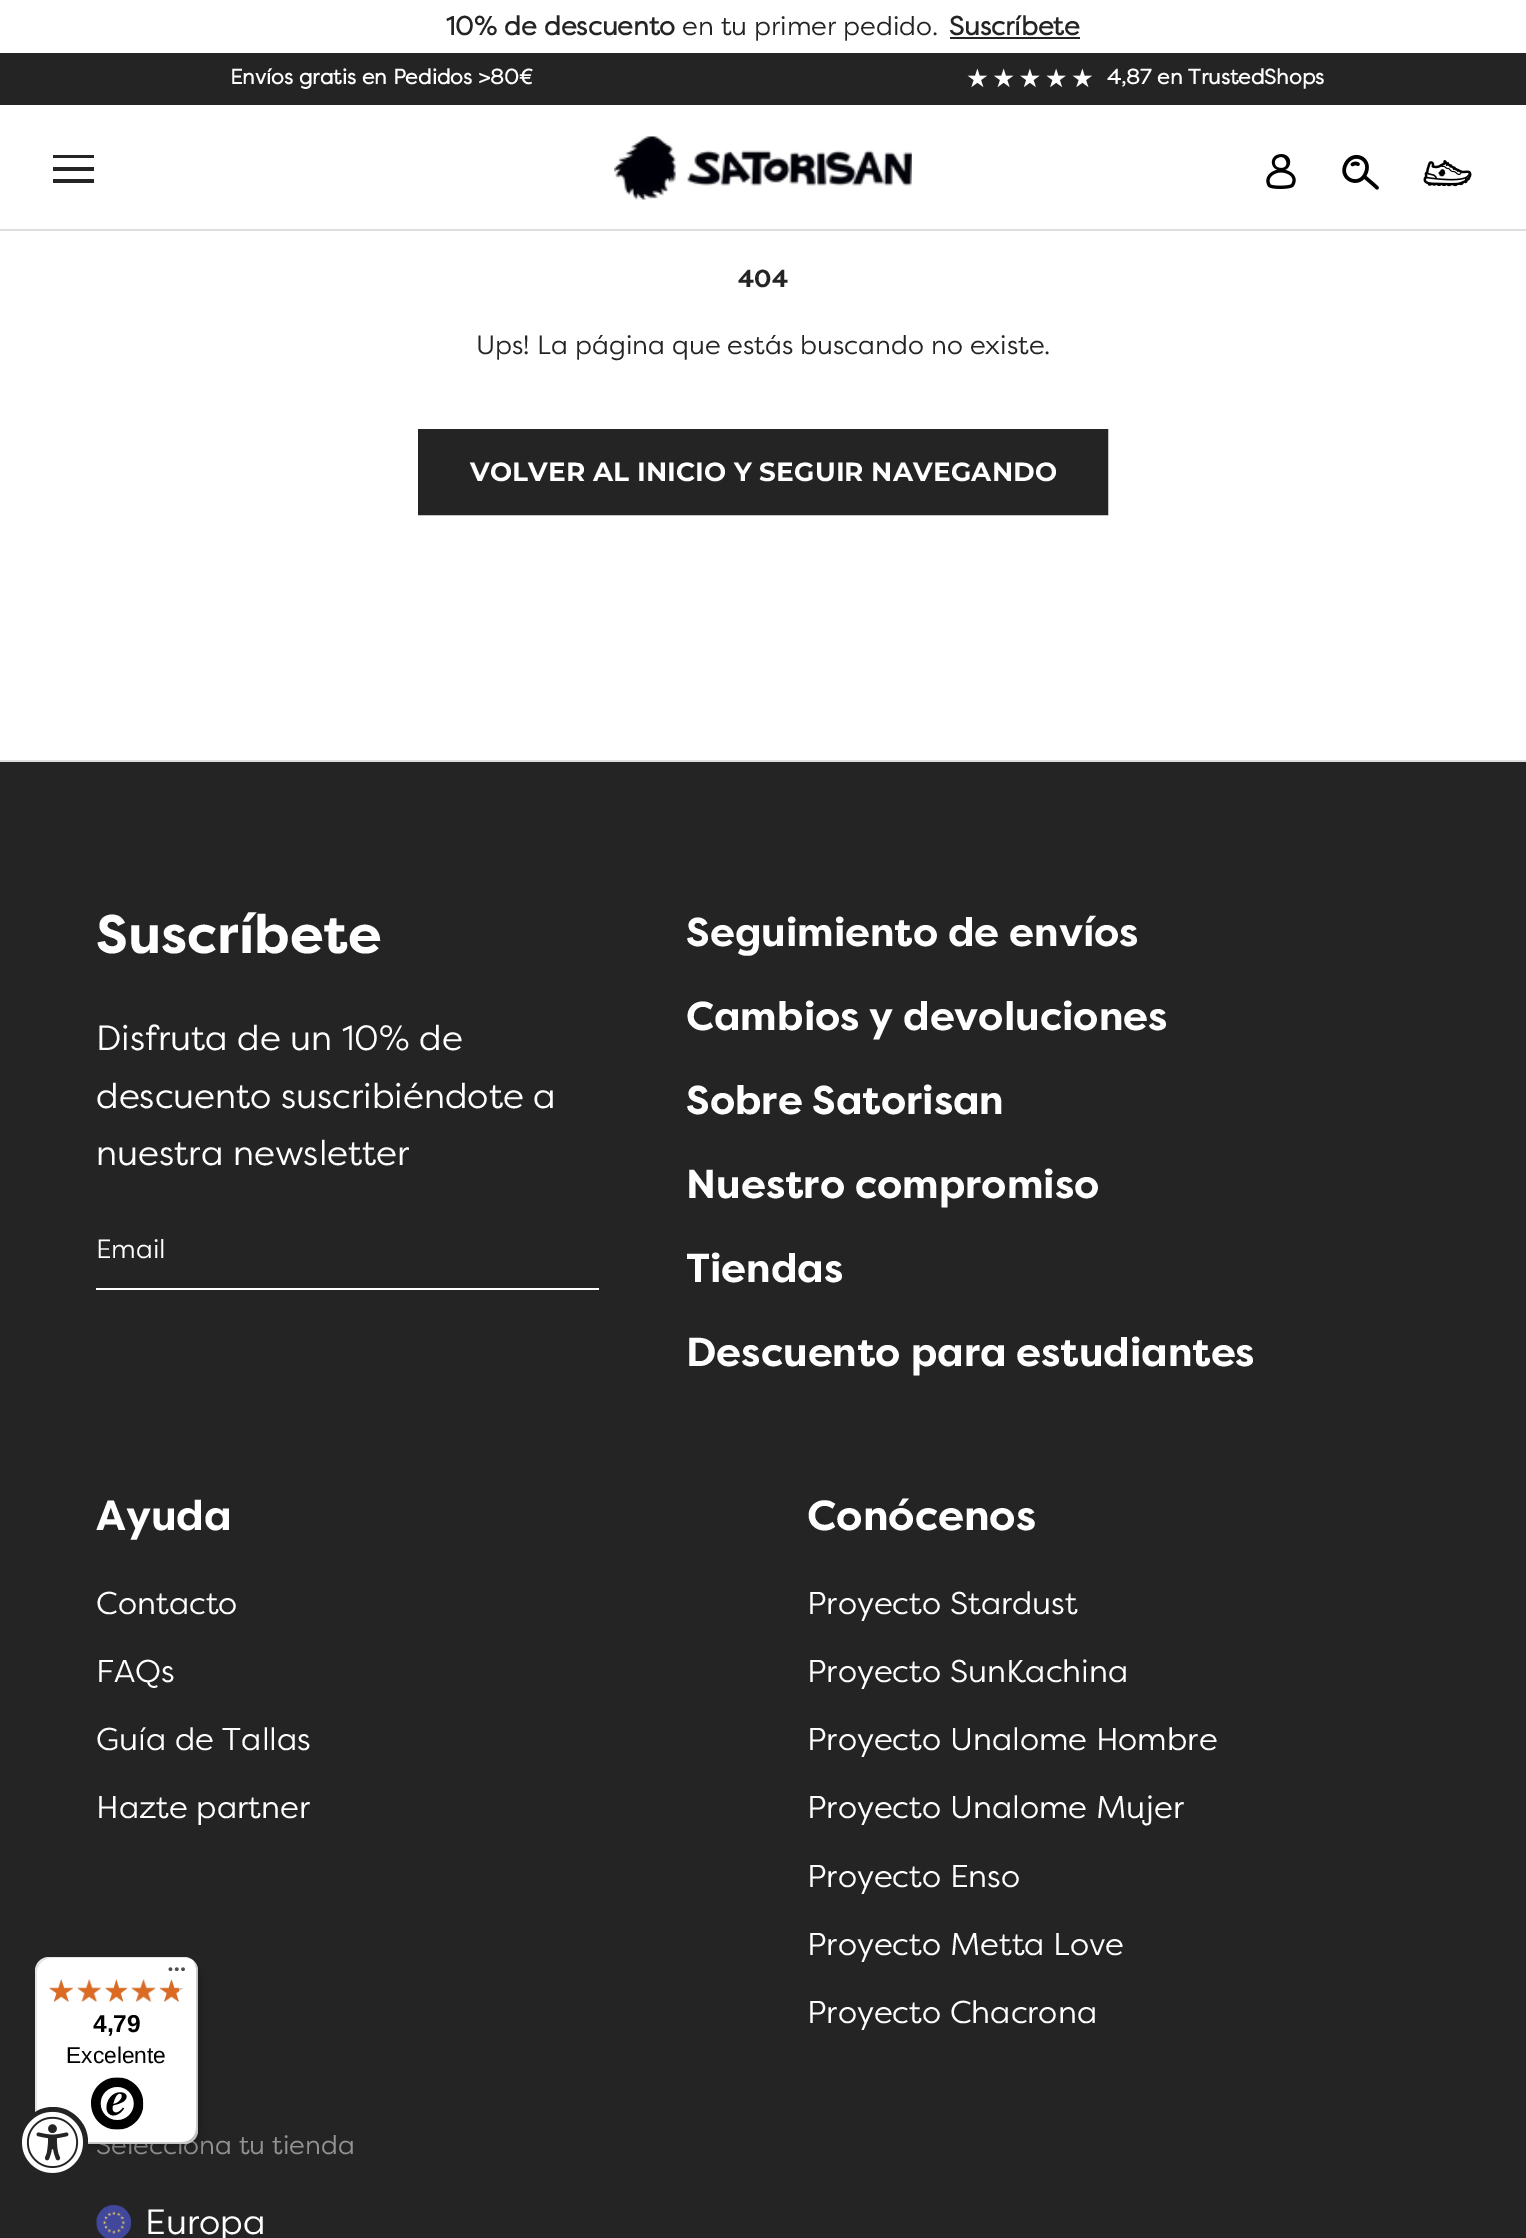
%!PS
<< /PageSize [1526 2238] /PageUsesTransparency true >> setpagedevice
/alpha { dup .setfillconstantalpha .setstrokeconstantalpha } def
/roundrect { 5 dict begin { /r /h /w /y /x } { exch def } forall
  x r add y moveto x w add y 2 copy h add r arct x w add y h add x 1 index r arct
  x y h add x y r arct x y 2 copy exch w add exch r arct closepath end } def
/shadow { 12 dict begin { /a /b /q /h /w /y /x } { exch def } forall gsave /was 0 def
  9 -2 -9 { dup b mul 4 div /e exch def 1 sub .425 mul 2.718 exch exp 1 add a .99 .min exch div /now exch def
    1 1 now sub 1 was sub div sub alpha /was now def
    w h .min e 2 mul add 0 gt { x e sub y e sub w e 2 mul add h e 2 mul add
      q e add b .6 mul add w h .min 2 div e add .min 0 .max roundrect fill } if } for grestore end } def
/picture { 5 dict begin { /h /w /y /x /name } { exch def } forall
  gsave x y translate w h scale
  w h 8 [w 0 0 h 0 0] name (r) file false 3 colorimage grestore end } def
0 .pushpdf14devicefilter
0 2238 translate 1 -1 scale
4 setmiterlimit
1 setgray
0 0 1526 2238 rectfill
/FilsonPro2-Bold [26.25 0 0 -26.25 0 0] selectfont
0.141 setgray
446 35 moveto (10% de descuento) show
/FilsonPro-Regular [26.25 0 0 -26.25 0 0] selectfont
682 35 moveto (en tu primer pedido.) show
/FilsonPro2-Bold [26.25 0 0 -26.25 0 0] selectfont
949 35 moveto (Suscríbete) show
950 37 130 2 rectfill
0 53 1526 52 rectfill
/FilsonPro2-Bold [21 0 0 -21 0 0] selectfont
1 setgray
230 84 moveto (Envíos gratis en Pedidos >80€) show
(img1.rgb) 967 68 20 20 picture
(img2.rgb) 994 68 20 20 picture
(img3.rgb) 1020 68 20 20 picture
(img4.rgb) 1046 68 20 20 picture
(img1.rgb) 1072 68 20 20 picture
1107 84 moveto (4,87 en TrustedShops) show
0.871 setgray
0 229 1526 2 rectfill
gsave
53 154 42 30 rectclip
0.141 setgray
newpath 52 183 moveto 52 179 lineto 94 179 lineto 94 183 lineto closepath 52 167 moveto 94 167 lineto 94 171 lineto 52 171 lineto closepath 52 155 moveto 94 155 lineto 94 158 lineto 52 158 lineto closepath fill
grestore
(img5.rgb) 614 136 298 64 picture
(img6.rgb) 1266 154 30 35 picture
(img7.rgb) 1342 154 37 36 picture
(img8.rgb) 1423 160 49 27 picture
/FilsonPro-Bold [24.5 0 0 -24.5 0 0] selectfont
0.141 setgray
738 287 moveto (404) show
/FilsonPro-Regular [26.25 0 0 -26.25 0 0] selectfont
476 354 moveto (Ups! La página que estás buscando no existe.) show
2 setlinewidth
419 430 688 84 rectstroke
420 431 686 82 rectfill
/Montserrat-Bold [26.25 0 0 -26.25 0 0] selectfont
1 setgray
470 481 moveto 0.2 0 (VOLVER AL INICIO Y SEGUIR NAVEGANDO) ashow
0.141 setgray
0 762 1526 1476 rectfill
0.871 setgray
0 760 1526 2 rectfill
/FilsonPro-Bold [54.25 0 0 -54.25 0 0] selectfont
1 setgray
96 953 moveto (Suscríbete) show
/FilsonPro-Regular [35 0 0 -35 0 0] selectfont
96 1050 moveto (Disfruta de un 10% de) show
96 1108 moveto (descuento suscribiéndote a) show
96 1165 moveto (nuestra newsletter) show
/FilsonPro-Regular [26.25 0 0 -26.25 0 0] selectfont
96 1258 moveto (Email) show
96 1288 503 2 rectfill
/FilsonPro-Bold [40.25 0 0 -40.25 0 0] selectfont
686 946 moveto (Seguimiento de envíos) show
686 1030 moveto (Cambios y devoluciones) show
686 1114 moveto (Sobre Satorisan) show
686 1198 moveto (Nuestro compromiso) show
686 1282 moveto (Tiendas) show
686 1366 moveto (Descuento para estudiantes) show
/FilsonPro-Bold [42 0 0 -42 0 0] selectfont
96 1530 moveto (Ayuda) show
/FilsonPro-Regular [31.5 0 0 -31.5 0 0] selectfont
96 1614 moveto (Contacto) show
96 1682 moveto (FAQs) show
96 1750 moveto (Guía de Tallas) show
96 1818 moveto (Hazte partner) show
/FilsonPro-Bold [42 0 0 -42 0 0] selectfont
807 1530 moveto (Conócenos) show
/FilsonPro-Regular [31.5 0 0 -31.5 0 0] selectfont
807 1614 moveto (Proyecto Stardust) show
807 1682 moveto (Proyecto SunKachina) show
807 1750 moveto (Proyecto Unalome Hombre) show
807 1818 moveto (Proyecto Unalome Mujer) show
807 1887 moveto (Proyecto Enso) show
807 1955 moveto (Proyecto Metta Love) show
807 2023 moveto (Proyecto Chacrona) show
/FilsonPro-Regular [26.25 0 0 -26.25 0 0] selectfont
0.576 setgray
96 2154 moveto (Selecciona tu tienda) show
(img9.rgb) 96 2205 36 33 picture
/FilsonPro-Regular [35 0 0 -35 0 0] selectfont
1 setgray
145 2234 moveto (Europa) show
0 setgray
40 1962 163 187 14 7 0.15 shadow
37 1958 163 188 14 2 0.15 shadow
1 setgray
35 1957 163 187 14 roundrect fill
0.1 alpha
0 setgray
newpath 51 1958 moveto 186 1958 lineto 188 1958 191 1959 193 1960 curveto 190 1958 187 1957 184 1957 curveto 49 1957 lineto 41 1957 35 1963 35 1971 curveto 35 2130 lineto 35 2135 37 2139 41 2141 curveto 38 2139 37 2135 37 2132 curveto 37 1972 lineto 37 1965 43 1958 51 1958 curveto closepath fill
0.2 alpha
newpath 38 2138 moveto 40 2142 44 2144 49 2144 curveto 184 2144 lineto 192 2144 198 2138 198 2130 curveto 198 1971 lineto 198 1967 196 1963 193 1961 curveto 195 1963 196 1966 196 1969 curveto 196 2128 lineto 196 2136 190 2142 182 2142 curveto 47 2142 lineto 44 2142 40 2141 38 2138 curveto closepath fill
0.196 setgray
newpath 38 2138 moveto 40 2142 44 2144 49 2144 curveto 184 2144 lineto 192 2144 198 2138 198 2130 curveto 198 1971 lineto 198 1968 197 1965 195 1962 curveto 196 1964 197 1967 197 1969 curveto 197 2129 lineto 197 2136 190 2143 183 2143 curveto 48 2143 lineto 44 2143 40 2141 38 2138 curveto closepath fill
0.3 alpha
1 setgray
newpath 40 2140 moveto 42 2143 45 2144 49 2144 curveto 184 2144 lineto 192 2144 198 2138 198 2130 curveto 198 1971 lineto 198 1967 197 1964 194 1962 curveto 196 1964 197 1967 197 1970 curveto 197 2129 lineto 197 2137 191 2143 183 2143 curveto 48 2143 lineto 45 2143 42 2142 40 2140 curveto closepath fill
1 alpha
(img10.rgb) 168 1967 17 4 picture
(img11.rgb) 49 1979 24 23 picture
(img12.rgb) 77 1979 24 23 picture
(img13.rgb) 105 1980 23 22 picture
(img14.rgb) 131 1979 25 23 picture
(img15.rgb) 159 1980 25 22 picture
(img16.rgb) 49 1979 24 23 picture
(img17.rgb) 77 1979 25 23 picture
(img18.rgb) 105 1979 23 23 picture
(img19.rgb) 131 1979 25 23 picture
(img20.rgb) 159 1979 20 23 picture
/LiberationSans-Bold [24.5 0 0 -24.5 0 0] selectfont
0 setgray
93 2032 moveto (4,79) show
/LiberationSans-Regular [22.75 0 0 -22.75 0 0] selectfont
66 2063 moveto (Excelente) show
(img21.rgb) 91 2077 53 53 picture
0.141 setgray
newpath 53 2142 35 0 360 arc closepath fill
(img22.rgb) 22 2111 61 62 picture
.poppdf14devicefilter showpage
